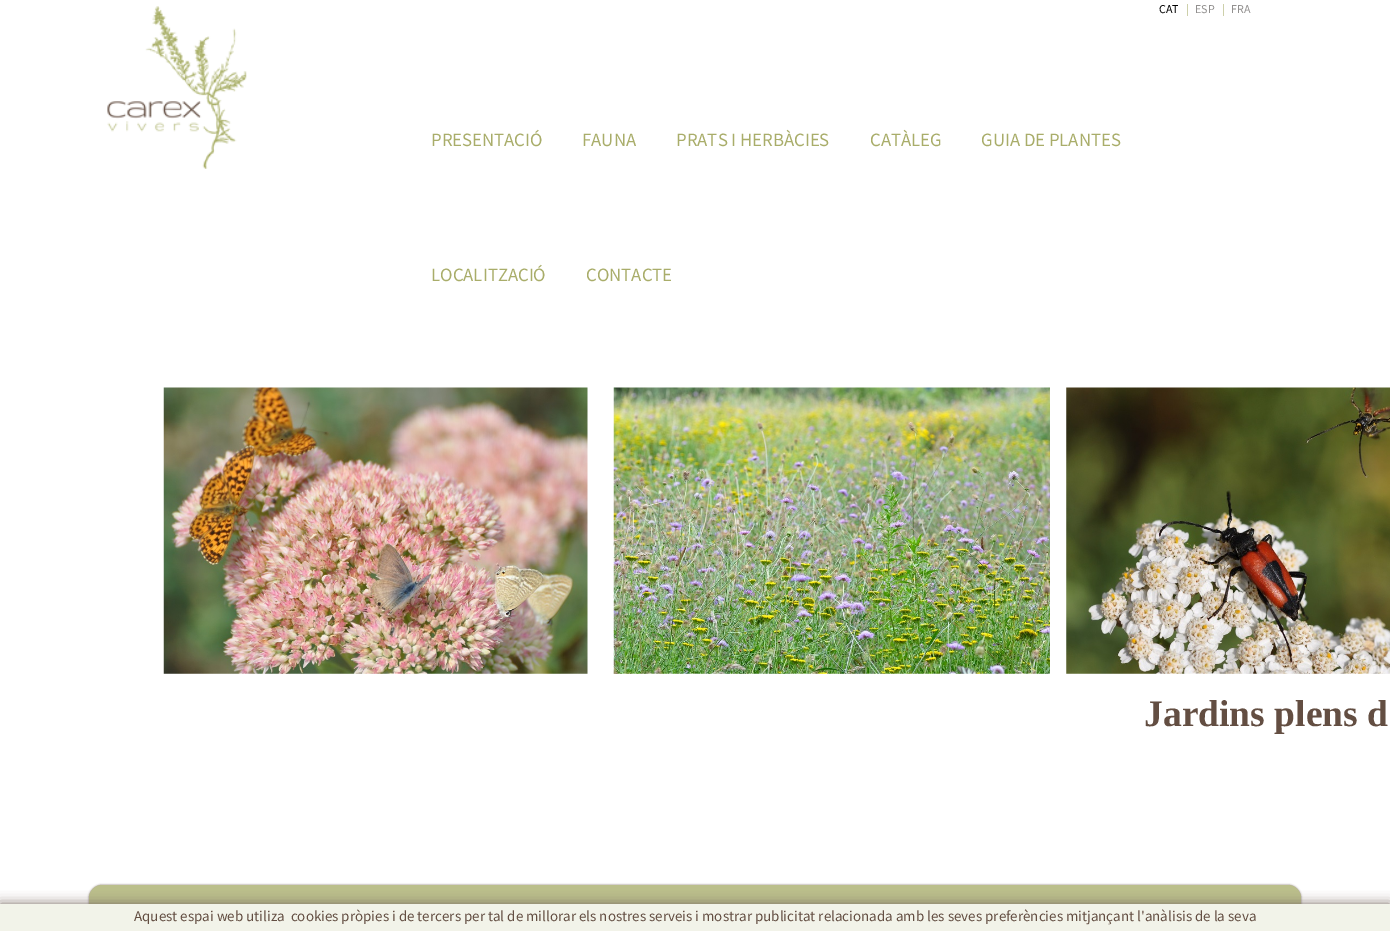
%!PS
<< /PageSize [1390 931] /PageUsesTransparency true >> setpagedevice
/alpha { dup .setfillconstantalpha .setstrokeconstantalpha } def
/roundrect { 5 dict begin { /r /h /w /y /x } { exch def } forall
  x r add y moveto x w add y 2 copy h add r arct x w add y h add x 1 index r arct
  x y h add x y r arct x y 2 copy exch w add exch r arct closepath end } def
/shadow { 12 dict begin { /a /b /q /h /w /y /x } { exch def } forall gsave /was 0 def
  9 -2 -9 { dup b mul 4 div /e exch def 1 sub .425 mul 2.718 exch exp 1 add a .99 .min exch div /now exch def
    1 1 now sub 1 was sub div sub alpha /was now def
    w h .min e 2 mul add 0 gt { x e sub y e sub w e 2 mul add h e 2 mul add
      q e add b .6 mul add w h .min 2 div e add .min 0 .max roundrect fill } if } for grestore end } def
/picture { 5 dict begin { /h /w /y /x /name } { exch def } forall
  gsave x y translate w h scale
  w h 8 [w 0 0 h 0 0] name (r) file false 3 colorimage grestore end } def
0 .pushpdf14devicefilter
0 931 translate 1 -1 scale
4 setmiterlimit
1 setgray
0 0 1390 931 rectfill
(img1.rgb) 107 6 140 163 picture
/SourceSansPro-Regular [12 0 0 -12 0 0] selectfont
0 setgray
1159 13 moveto (CAT) show
0.733 0.749 0.545 setrgbcolor
1186 13 moveto (|) show
0.573 0.565 0.561 setrgbcolor
1195 13 moveto (ESP) show
0.733 0.749 0.545 setrgbcolor
1222 13 moveto (|) show
0.573 0.565 0.561 setrgbcolor
1231 13 moveto (FRA) show
/SourceSansPro-Regular [18.75 0 0 -18.75 0 0] selectfont
0.663 0.678 0.416 setrgbcolor
431 146 moveto (PRESENTACIÓ) show
582 146 moveto (FAUNA) show
676 146 moveto (PRATS I HERBÀCIES) show
870 146 moveto (CATÀLEG) show
981 146 moveto (GUIA DE PLANTES) show
431 281 moveto (LOCALITZACIÓ) show
586 281 moveto (CONTACTE) show
(img2.rgb) 163 387 425 287 picture
(img3.rgb) 613 387 437 287 picture
(img4.rgb) 1066 387 324 287 picture
/LiberationSerif-Bold [37.5 0 0 -37.5 0 0] selectfont
0.388 0.306 0.259 setrgbcolor
1144 726 moveto (Jardins plens d) show
0.471 0.42 0.384 setrgbcolor
89 885 1212 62 13 1 1 shadow
0.733 0.749 0.545 setrgbcolor
newpath 102 885 moveto 1288 885 lineto 1295 885 1301 891 1301 898 curveto 1301 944 lineto 89 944 lineto 89 898 lineto 89 891 95 885 102 885 curveto closepath fill
0.471 0.42 0.384 setrgbcolor
0 904 1390 27 0 6 1 shadow
0.949 0.953 0.914 setrgbcolor
0 904 1390 27 rectfill
/SourceSansPro-Regular [15 0 0 -15 0 0] selectfont
0.388 0.306 0.259 setrgbcolor
134 921 moveto (Aquest espai web utiliza  cookies pròpies i de tercers per tal de millorar els nostres serveis i mostrar publicitat relacionada amb les seves preferències mitjançant l'anàlisis de la seva) show
.poppdf14devicefilter showpage
